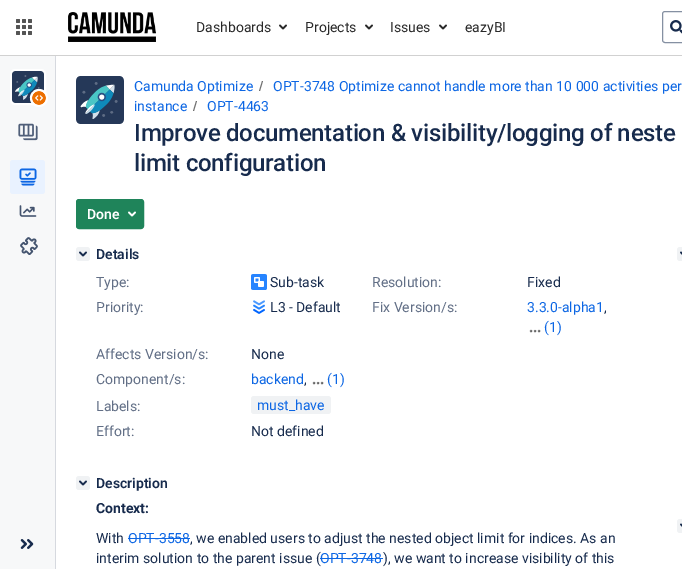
%!PS
<< /PageSize [682 569] >> setpagedevice
/roundrect { 5 dict begin { /r /h /w /y /x } { exch def } forall
  x r add y moveto x w add y 2 copy h add r arct x w add y h add x 1 index r arct
  x y h add x y r arct x y 2 copy exch w add exch r arct closepath end } def
/picture { 5 dict begin { /h /w /y /x /name } { exch def } forall
  gsave x y translate w h scale
  w h 8 [w 0 0 h 0 0] name (r) file false 3 colorimage grestore end } def
0 569 translate 1 -1 scale
4 setmiterlimit
1 setgray
0 0 682 569 rectfill
0.82 setgray
0 55 682 1 rectfill
(img1.rgb) 16 19 16 16 picture
(img2.rgb) 68 12 88 30 picture
/Roboto-Regular [14 0 0 -14 0 0] selectfont
0.161 setgray
196 32 moveto (Dashboards) show
(img3.rgb) 279 24 8 6 picture
305 32 moveto (Projects) show
(img3.rgb) 365 24 8 6 picture
390 32 moveto (Issues) show
(img3.rgb) 439 24 8 6 picture
465 32 moveto (eazyBI) show
0.522 0.565 0.635 setrgbcolor
662.5 11.5 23 31 2.5 roundrect stroke
(img4.rgb) 670 20 12 14 picture
0.969 0.973 0.976 setrgbcolor
0 56 55 513 rectfill
0.839 0.851 0.875 setrgbcolor
55 56 1 513 rectfill
1 setgray
2 setlinewidth
11 70 34 34 4 roundrect stroke
(img5.rgb) 12 71 32 32 picture
newpath 39 98 9 0 360 arc closepath fill
(img6.rgb) 32 91 14 14 picture
(img7.rgb) 18 123 20 18 picture
0.914 0.949 1 setrgbcolor
10 160 35 34 3 roundrect fill
(img8.rgb) 19 168 18 18 picture
(img9.rgb) 19 205 18 12 picture
(img10.rgb) 20 237 18 18 picture
(img11.rgb) 20 539 14 10 picture
(img12.rgb) 76 76 48 48 picture
0.047 0.4 0.894 setrgbcolor
134 91 moveto (Camunda Optimize) show
0.439 setgray
newpath 260 91 moveto 263 81 lineto 262 81 lineto 259 91 lineto closepath fill
0.047 0.4 0.894 setrgbcolor
273 91 moveto (OPT-3748 Optimize cannot handle more than 10 000 activities per) show
134 111 moveto (instance) show
0.439 setgray
newpath 194 111 moveto 197 101 lineto 196 101 lineto 193 111 lineto closepath fill
0.047 0.4 0.894 setrgbcolor
207 111 moveto (OPT-4463) show
/Roboto-Medium [24 0 0 -24 0 0] selectfont
0.09 0.169 0.302 setrgbcolor
134 141 moveto -0.25 0 (Improve documentation & visibility/logging of neste) ashow
134 171 moveto -0.25 0 (limit configuration) ashow
0.122 0.518 0.353 setrgbcolor
76.5 199.5 67 29 2.5 roundrect gsave fill grestore
1 setlinewidth
stroke
/Roboto-SemiBold [14 0 0 -14 0 0] selectfont
1 setgray
87 219 moveto (Done) show
(img13.rgb) 128 211 8 6 picture
0.941 0.949 0.957 setrgbcolor
76 247 14 14 3 roundrect fill
(img14.rgb) 79 251 8 6 picture
0.09 0.169 0.302 setrgbcolor
96 259 moveto (Details) show
/Roboto-Regular [14 0 0 -14 0 0] selectfont
0.384 0.435 0.525 setrgbcolor
96 287 moveto (Type:) show
(img15.rgb) 251 274 16 16 picture
0.09 0.169 0.302 setrgbcolor
270 287 moveto (Sub-task) show
0.384 0.435 0.525 setrgbcolor
372 287 moveto (Resolution:) show
0.09 0.169 0.302 setrgbcolor
527 287 moveto (Fixed) show
0.384 0.435 0.525 setrgbcolor
96 312 moveto (Priority:) show
(img16.rgb) 253 300 12 14 picture
0.09 0.169 0.302 setrgbcolor
270 312 moveto (L3 - Default) show
0.384 0.435 0.525 setrgbcolor
372 312 moveto (Fix Version/s:) show
0.047 0.4 0.894 setrgbcolor
527 312 moveto (3.3.0-alpha1) show
0.09 0.169 0.302 setrgbcolor
604 312 moveto (,) show
(img17.rgb) 529 329 12 4 picture
0.047 0.4 0.894 setrgbcolor
544 332 moveto (\(1\)) show
0.384 0.435 0.525 setrgbcolor
96 359 moveto (Affects Version/s:) show
0.09 0.169 0.302 setrgbcolor
251 359 moveto (None) show
0.384 0.435 0.525 setrgbcolor
96 384 moveto (Component/s:) show
0.047 0.4 0.894 setrgbcolor
251 384 moveto (backend) show
0.09 0.169 0.302 setrgbcolor
304 384 moveto (,) show
(img17.rgb) 312 381 12 4 picture
0.047 0.4 0.894 setrgbcolor
327 384 moveto (\(1\)) show
0.384 0.435 0.525 setrgbcolor
96 411 moveto (Labels:) show
0.941 0.949 0.957 setrgbcolor
251 396 80 18 3 roundrect fill
0.047 0.4 0.894 setrgbcolor
257 410 moveto (must_have) show
0.384 0.435 0.525 setrgbcolor
96 436 moveto (Effort:) show
0.09 0.169 0.302 setrgbcolor
251 436 moveto (Not defined) show
0.941 0.949 0.957 setrgbcolor
76 476 14 14 3 roundrect fill
(img14.rgb) 79 480 8 6 picture
/Roboto-SemiBold [14 0 0 -14 0 0] selectfont
0.09 0.169 0.302 setrgbcolor
96 488 moveto (Description) show
/Roboto-Bold [14 0 0 -14 0 0] selectfont
96 513 moveto (Context:) show
/Roboto-Regular [14 0 0 -14 0 0] selectfont
96 543 moveto (With) show
0.047 0.4 0.894 setrgbcolor
128 543 moveto (OPT-3558) show
128 538 62 1 rectfill
0.09 0.169 0.302 setrgbcolor
190 543 moveto (, we enabled users to adjust the nested object limit for indices. As an) show
96 563 moveto (interim solution to the parent issue \() show
0.047 0.4 0.894 setrgbcolor
320 563 moveto (OPT-3748) show
320 558 63 1 rectfill
0.09 0.169 0.302 setrgbcolor
383 563 moveto (\), we want to increase visibility of this) show
0.941 0.949 0.957 setrgbcolor
677 247 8 14 3 roundrect fill
(img18.rgb) 680 251 2 4 picture
677 519 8 14 3 roundrect fill
(img18.rgb) 680 523 2 4 picture
showpage
